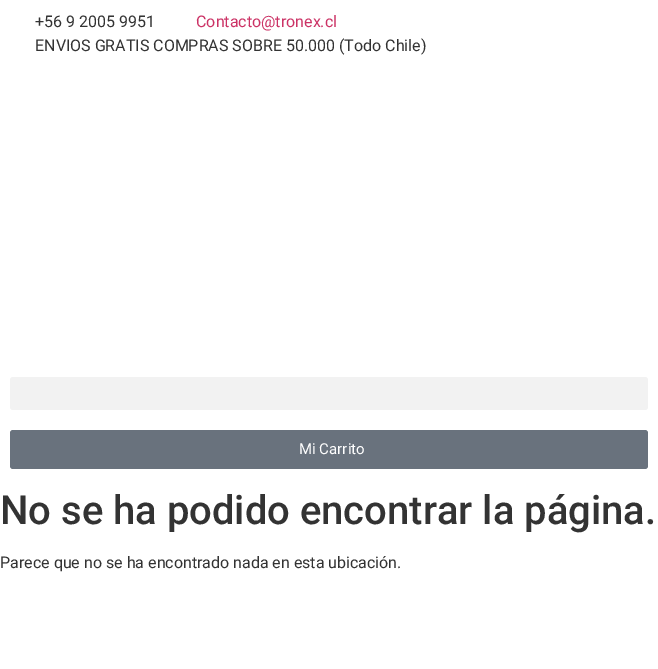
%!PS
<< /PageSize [658 669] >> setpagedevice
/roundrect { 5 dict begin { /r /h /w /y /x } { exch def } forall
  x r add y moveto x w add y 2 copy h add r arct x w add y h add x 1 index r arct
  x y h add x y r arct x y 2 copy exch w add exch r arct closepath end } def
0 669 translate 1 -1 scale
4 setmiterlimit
1 setgray
0 0 658 669 rectfill
/Roboto-Regular [16 0 0 -16 0 0] selectfont
0.2 setgray
35 27 moveto (+56 9 2005 9951) show
0.8 0.2 0.4 setrgbcolor
196 27 moveto (Contacto@tronex.cl) show
0.2 setgray
35 51 moveto (ENVIOS GRATIS COMPRAS SOBRE 50.000 \(Todo Chile\)) show
0.949 setgray
10 377 638 33 3 roundrect fill
0.412 0.447 0.49 setrgbcolor
10 430 638 39 3 roundrect fill
/Roboto-Regular [15 0 0 -15 0 0] selectfont
1 setgray
299 454 moveto (Mi Carrito) show
/Roboto-Medium [40 0 0 -40 0 0] selectfont
0.2 setgray
0 524 moveto (No se ha podido encontrar la página.) show
/Roboto-Regular [16 0 0 -16 0 0] selectfont
0 568 moveto (Parece que no se ha encontrado nada en esta ubicación.) show
showpage
